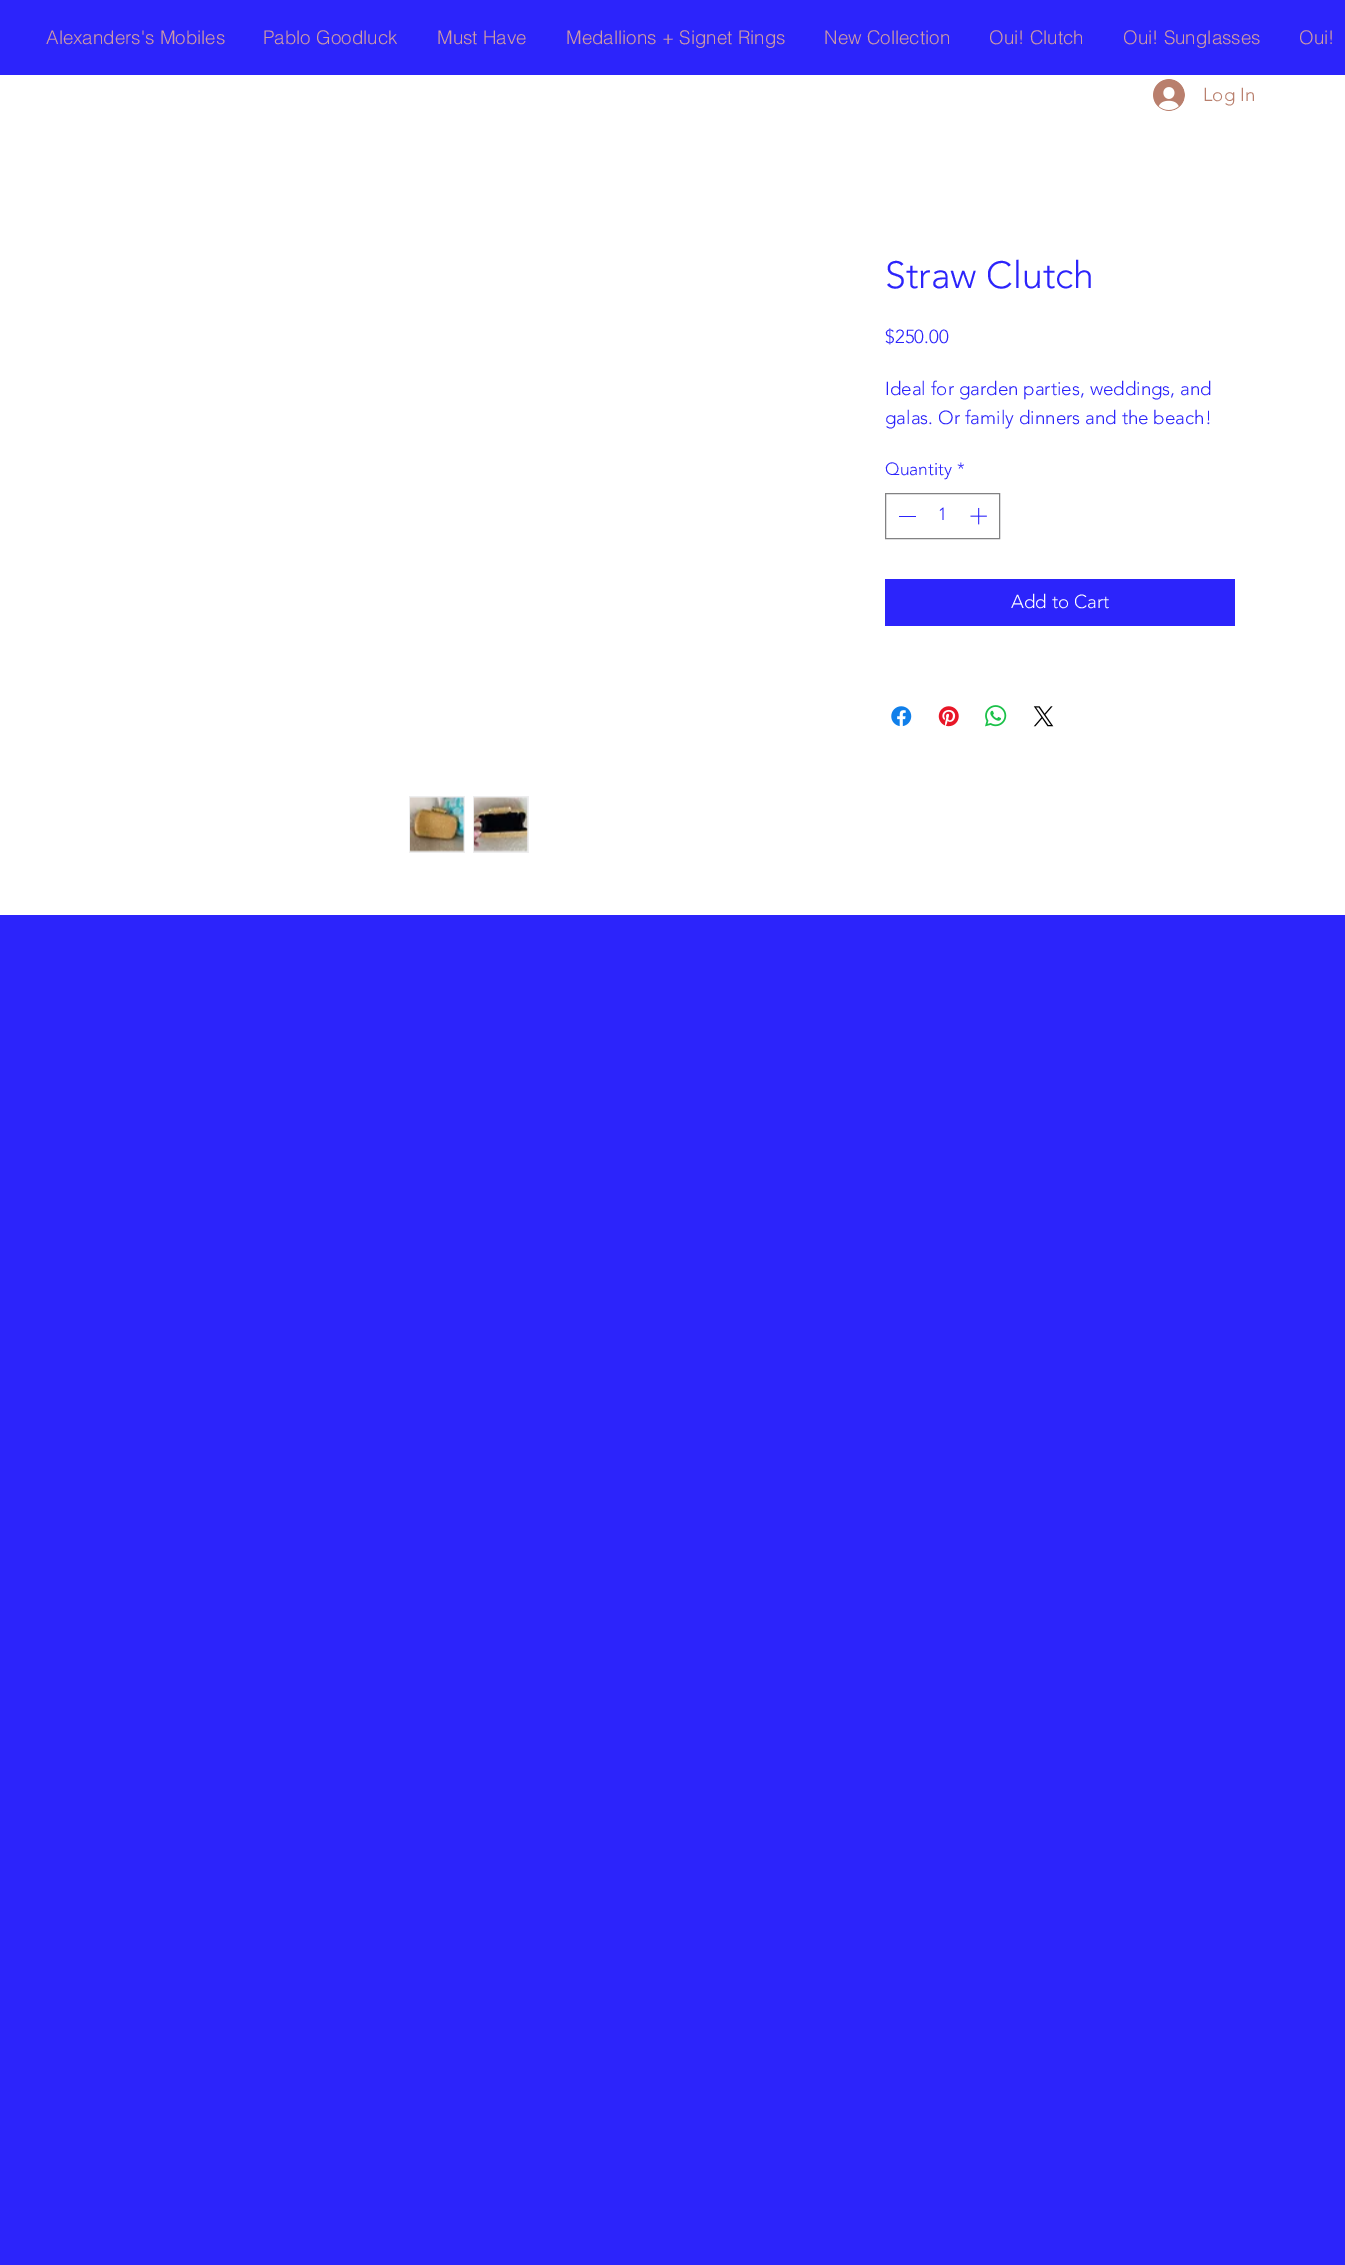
%!PS
<< /PageSize [1345 2265] >> setpagedevice
/picture { 5 dict begin { /h /w /y /x /name } { exch def } forall
  gsave x y translate w h scale
  w h 8 [w 0 0 h 0 0] name (r) file false 3 colorimage grestore end } def
0 2265 translate 1 -1 scale
4 setmiterlimit
0.173 0.141 0.984 setrgbcolor
0 0 1345 2265 rectfill
/helvetica-Light [18.75 0 0 -18.75 0 0] selectfont
0.808 0.608 0.647 setrgbcolor
46 44 moveto (Alexanders's Mobiles) show
263 44 moveto (Pablo Goodluck) show
437 44 moveto (Must Have) show
566 44 moveto (Medallions + Signet Rings) show
824 44 moveto (New Collection) show
989 44 moveto (Oui! Clutch) show
1123 44 moveto (Oui! Sunglasses) show
1299 44 moveto (Oui!) show
1 setgray
0 75 1345 840 rectfill
(img1.rgb) 1153 79 32 32 picture
/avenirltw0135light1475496-Light [18.75 0 0 -18.75 0 0] selectfont
0.725 0.498 0.427 setrgbcolor
1203 101 moveto (Log In) show
/avenirltw0135light1475496-Light [37.5 0 0 -37.5 0 0] selectfont
0.173 0.141 0.984 setrgbcolor
885 288 moveto (Straw Clutch) show
/avenirltw0135light1475496-Light [18.75 0 0 -18.75 0 0] selectfont
885 343 moveto ($250.00) show
885 395 moveto (Ideal for garden parties, weddings, and) show
885 424 moveto (galas. Or family dinners and the beach!) show
/avenirltw0135light1475496-Light [17.5 0 0 -17.5 0 0] selectfont
885 475 moveto (Quantity) show
957 475 moveto (*) show
0.51 0.51 0.514 setrgbcolor
885.5 493.5 114 45 rectstroke
0.173 0.141 0.984 setrgbcolor
899 516 17 1 rectfill
938 520 moveto (1) show
(img2.rgb) 970 507 17 18 picture
885 579 350 47 rectfill
/avenirltw0135light1475496-Light [18.75 0 0 -18.75 0 0] selectfont
1 setgray
1011 608 moveto (Add to Cart) show
(img3.rgb) 891 706 21 21 picture
(img4.rgb) 938 706 21 21 picture
(img5.rgb) 985 705 22 22 picture
(img6.rgb) 1033 706 21 21 picture
0.929 0.929 0.933 setrgbcolor
409 796 56 57 rectfill
(img7.rgb) 410 797 54 55 picture
473 796 56 57 rectfill
(img8.rgb) 473 797 55 55 picture
showpage
